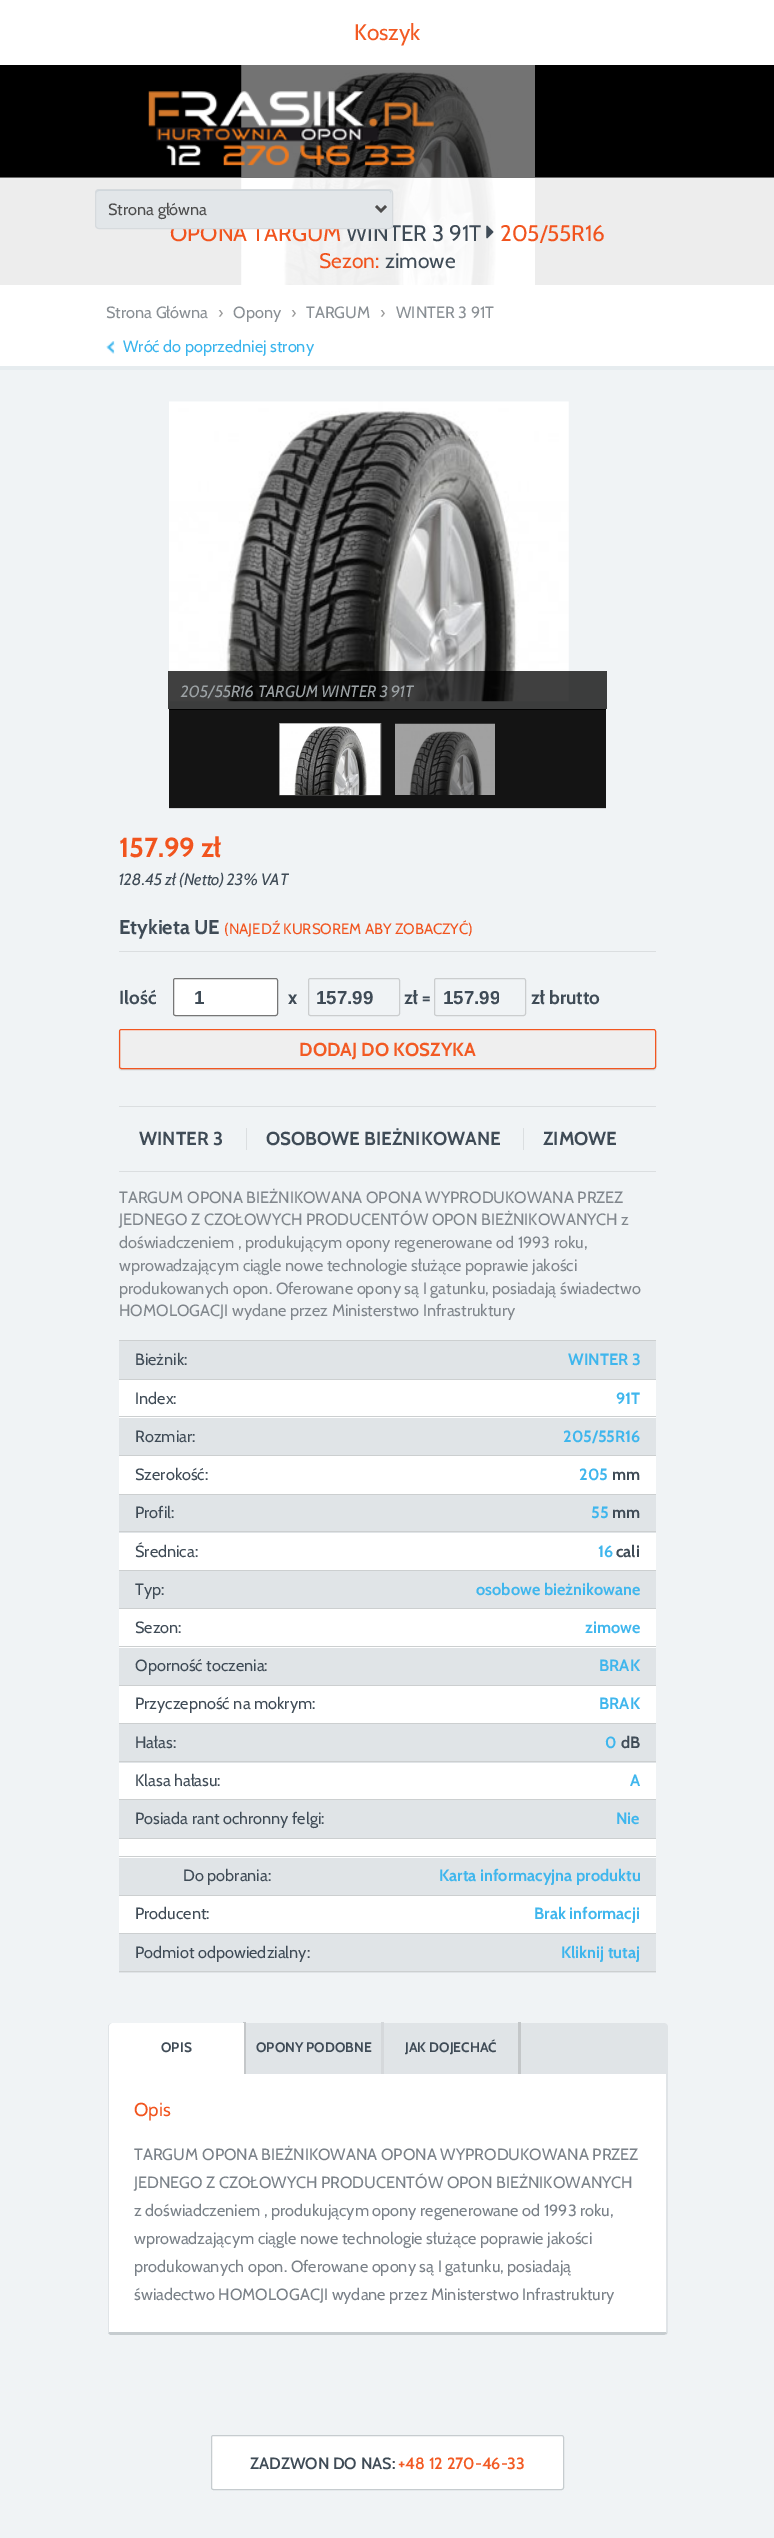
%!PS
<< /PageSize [774 2538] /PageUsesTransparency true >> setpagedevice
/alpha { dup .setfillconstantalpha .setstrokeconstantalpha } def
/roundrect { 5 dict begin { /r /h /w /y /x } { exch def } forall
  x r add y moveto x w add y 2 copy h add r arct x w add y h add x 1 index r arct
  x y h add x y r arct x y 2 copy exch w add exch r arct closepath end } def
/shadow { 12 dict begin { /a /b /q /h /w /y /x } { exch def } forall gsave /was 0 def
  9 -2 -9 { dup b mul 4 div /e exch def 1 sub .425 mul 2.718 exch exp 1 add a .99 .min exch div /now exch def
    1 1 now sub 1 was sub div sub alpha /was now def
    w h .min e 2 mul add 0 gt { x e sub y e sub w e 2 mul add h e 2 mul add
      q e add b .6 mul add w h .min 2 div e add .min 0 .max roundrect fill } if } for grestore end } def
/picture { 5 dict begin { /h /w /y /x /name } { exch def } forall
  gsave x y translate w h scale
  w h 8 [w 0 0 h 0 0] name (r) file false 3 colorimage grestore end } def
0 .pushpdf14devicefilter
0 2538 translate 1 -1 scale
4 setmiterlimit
1 setgray
0 0 774 2538 rectfill
/Cabin-Regular [22.5 0 0 -22.5 0 0] selectfont
0.949 0.353 0.137 setrgbcolor
354 40 moveto (Koszyk) show
0 setgray
0 65 774 220 rectfill
(img2.rgb) 241 65 294 220 picture
0.93 alpha
1 setgray
0 177 774 108 rectfill
0.55 alpha
0 setgray
0 65 774 113 rectfill
1 alpha
(img1.rgb) 148 91 286 75 picture
0.945 0.329 0.118 setrgbcolor
170 241 moveto (OPONA TARGUM) show
0.247 0.294 0.337 setrgbcolor
346 241 moveto (WINTER 3 91T) show
0.886 0.902 0.914 setrgbcolor
95 189 298 40 4 roundrect fill
0.808 0.839 0.859 setrgbcolor
newpath 99 191 moveto 389 191 lineto 390 191 391 192 391 194 curveto 391 192 391 190 388 190 curveto 98 190 lineto 96 190 96 192 96 194 curveto 96 192 97 191 99 191 curveto closepath fill
0.839 0.855 0.867 setrgbcolor
95.5 189.5 297 39 3.5 roundrect stroke
0.302 setgray
2.5 setlinewidth
newpath 376 206 moveto 381 211 lineto 386 206 lineto stroke
/Cabin-Regular [16.25 0 0 -16.25 0 0] selectfont
108 215 moveto (Strona główna) show
(img3.rgb) 486 225 8 14 picture
/Cabin-Regular [22.5 0 0 -22.5 0 0] selectfont
0.945 0.329 0.118 setrgbcolor
500 241 moveto (205/55R16) show
/Cabin-Regular [21 0 0 -21 0 0] selectfont
319 268 moveto (Sezon:) show
0.247 0.294 0.337 setrgbcolor
385 268 moveto (zimowe) show
/Cabin-Regular [16.25 0 0 -16.25 0 0] selectfont
0.537 0.561 0.58 setrgbcolor
106 318 moveto (Strona Główna) show
0.604 setgray
218 318 moveto (›) show
0.537 0.561 0.58 setrgbcolor
233 318 moveto (Opony) show
0.604 setgray
291 318 moveto (›) show
0.537 0.561 0.58 setrgbcolor
306 318 moveto (TARGUM) show
0.604 setgray
380 318 moveto (›) show
0.537 0.561 0.58 setrgbcolor
396 318 moveto (WINTER 3 91T) show
(img4.rgb) 106 341 9 13 picture
0.224 0.706 0.929 setrgbcolor
123 352 moveto (Wróć do poprzedniej strony) show
0.941 0.953 0.961 setrgbcolor
0 370 774 2168 rectfill
0.902 0.925 0.937 setrgbcolor
0 366 774 4 rectfill
(img5.rgb) 169 401 400 301 picture
0.75 alpha
0 setgray
168 671 439 38 rectfill
/Cabin-Italic [16.25 0 0 -16.25 0 0] selectfont
1 alpha
0.616 0.639 0.651 setrgbcolor
181 697 moveto (205/55R16 TARGUM WINTER 3 91T) show
0.078 setgray
169 710 437 98 rectfill
0 setgray
169 709 437 1 rectfill
0.827 0.835 0.843 setrgbcolor
169 808 437 1 rectfill
0.6 setgray
1 setlinewidth
279.5 723.5 101 71 rectstroke
(img6.rgb) 280 723 100 72 picture
(img7.rgb) 395 723 100 72 picture
/Cabin-Bold [27.5 0 0 -27.5 0 0] selectfont
0.945 0.329 0.118 setrgbcolor
119 857 moveto (157.99 zł) show
/Cabin-Italic [16.25 0 0 -16.25 0 0] selectfont
0.247 0.294 0.337 setrgbcolor
119 885 moveto (128.45 zł \(Netto\) 23% VAT) show
/Cabin-Bold [20 0 0 -20 0 0] selectfont
119 934 moveto (Etykieta UE) show
/Cabin-Regular [15 0 0 -15 0 0] selectfont
0.945 0.329 0.118 setrgbcolor
224 934 moveto (\(NAJEDŹ KURSOREM ABY ZOBACZYĆ\)) show
0.859 0.871 0.878 setrgbcolor
119 951 537 1 rectfill
/Cabin-Bold [18.75 0 0 -18.75 0 0] selectfont
0.247 0.294 0.337 setrgbcolor
119 1004 moveto (Ilość) show
1 setgray
173.5 978.5 104 37 2 roundrect gsave fill grestore
0.463 setgray
stroke
/LiberationSans-Bold [18.75 0 0 -18.75 0 0] selectfont
0.247 0.294 0.337 setrgbcolor
194 1004 moveto (1) show
/Cabin-Bold [18.75 0 0 -18.75 0 0] selectfont
288 1004 moveto (x) show
0.796 0.804 0.808 setrgbcolor
308.5 978.5 91 37 2 roundrect stroke
/LiberationSans-Bold [18.75 0 0 -18.75 0 0] selectfont
0.247 0.294 0.337 setrgbcolor
316 1004 moveto (157.99) show
/Cabin-Bold [18.75 0 0 -18.75 0 0] selectfont
404 1004 moveto (zł =) show
0.796 0.804 0.808 setrgbcolor
434.5 978.5 91 37 2 roundrect stroke
gsave
443 986 56 22 rectclip
/LiberationSans-Bold [18.75 0 0 -18.75 0 0] selectfont
0.247 0.294 0.337 setrgbcolor
443 1004 moveto (157.99) show
grestore
0.247 0.294 0.337 setrgbcolor
531 1004 moveto (zł brutto) show
0 setgray
119 1030 537 40 2.5 0.5 0.15 shadow
0.937 setgray
119 1029 537 40 2.5 roundrect fill
0.969 setgray
newpath 121 1031 moveto 654 1031 lineto 655 1032 lineto 655 1031 655 1030 654 1030 curveto 121 1030 lineto 120 1031 lineto 120 1032 lineto closepath fill
0.949 0.337 0.125 setrgbcolor
119.5 1029.5 536 39 2 roundrect stroke
0.949 0.353 0.137 setrgbcolor
299 1056 moveto (DODAJ DO KOSZYKA) show
0.859 0.871 0.878 setrgbcolor
119 1106 537 1 rectfill
119 1171 537 1 rectfill
0.247 0.294 0.337 setrgbcolor
139 1145 moveto (WINTER 3) show
266 1145 moveto (OSOBOWE BIEŻNIKOWANE) show
0.859 0.871 0.878 setrgbcolor
246 1128 1 22 rectfill
0.247 0.294 0.337 setrgbcolor
543 1145 moveto (ZIMOWE) show
0.859 0.871 0.878 setrgbcolor
523 1128 1 22 rectfill
/Cabin-Regular [16.25 0 0 -16.25 0 0] selectfont
0.502 0.525 0.549 setrgbcolor
119 1203 moveto (TARGUM OPONA BIEŻNIKOWANA OPONA WYPRODUKOWANA PRZEZ) show
119 1225 moveto (JEDNEGO Z CZOŁOWYCH PRODUCENTÓW OPON BIEŻNIKOWANYCH z) show
119 1248 moveto (doświadczeniem , produkującym opony regenerowane od 1993 roku,) show
119 1271 moveto (wprowadzającym ciągle nowe technologie służące poprawie jakości) show
119 1294 moveto (produkowanych opon. Oferowane opony są I gatunku, posiadają świadectwo) show
119 1316 moveto (HOMOLOGACJI wydane przez Ministerstwo Infrastruktury) show
0.8 0.812 0.816 setrgbcolor
119 1340 537 1 rectfill
0.878 0.894 0.906 setrgbcolor
119 1341 537 38 rectfill
0.8 0.812 0.816 setrgbcolor
119 1379 537 1 rectfill
0.247 0.294 0.337 setrgbcolor
135 1365 moveto (Bieżnik:) show
/Cabin-Bold [16.25 0 0 -16.25 0 0] selectfont
0.247 0.714 0.929 setrgbcolor
568 1365 moveto (WINTER 3) show
1 setgray
119 1380 537 38 rectfill
0.8 0.812 0.816 setrgbcolor
119 1416 537 1 rectfill
/Cabin-Regular [16.25 0 0 -16.25 0 0] selectfont
0.247 0.294 0.337 setrgbcolor
135 1404 moveto (Index:) show
/Cabin-Bold [16.25 0 0 -16.25 0 0] selectfont
0.247 0.714 0.929 setrgbcolor
616 1404 moveto (91T) show
0.878 0.894 0.906 setrgbcolor
119 1418 537 37 rectfill
0.8 0.812 0.816 setrgbcolor
119 1455 537 1 rectfill
/Cabin-Regular [16.25 0 0 -16.25 0 0] selectfont
0.247 0.294 0.337 setrgbcolor
135 1442 moveto (Rozmiar:) show
/Cabin-Bold [16.25 0 0 -16.25 0 0] selectfont
0.247 0.714 0.929 setrgbcolor
563 1442 moveto (205/55R16) show
1 setgray
119 1456 537 38 rectfill
0.8 0.812 0.816 setrgbcolor
119 1494 537 1 rectfill
/Cabin-Regular [16.25 0 0 -16.25 0 0] selectfont
0.247 0.294 0.337 setrgbcolor
135 1480 moveto (Szerokość:) show
/Cabin-Bold [16.25 0 0 -16.25 0 0] selectfont
0.247 0.714 0.929 setrgbcolor
579 1480 moveto (205) show
0.247 0.294 0.337 setrgbcolor
612 1480 moveto (mm) show
0.878 0.894 0.906 setrgbcolor
119 1495 537 38 rectfill
0.8 0.812 0.816 setrgbcolor
119 1531 537 1 rectfill
/Cabin-Regular [16.25 0 0 -16.25 0 0] selectfont
0.247 0.294 0.337 setrgbcolor
135 1518 moveto (Profil:) show
/Cabin-Bold [16.25 0 0 -16.25 0 0] selectfont
0.247 0.714 0.929 setrgbcolor
591 1518 moveto (55) show
0.247 0.294 0.337 setrgbcolor
612 1518 moveto (mm) show
1 setgray
119 1533 537 37 rectfill
0.8 0.812 0.816 setrgbcolor
119 1570 537 1 rectfill
/Cabin-Regular [16.25 0 0 -16.25 0 0] selectfont
0.247 0.294 0.337 setrgbcolor
135 1557 moveto (Średnica:) show
/Cabin-Bold [16.25 0 0 -16.25 0 0] selectfont
0.247 0.714 0.929 setrgbcolor
598 1557 moveto (16) show
0.247 0.294 0.337 setrgbcolor
616 1557 moveto (cali) show
0.878 0.894 0.906 setrgbcolor
119 1571 537 37 rectfill
0.8 0.812 0.816 setrgbcolor
119 1608 537 1 rectfill
/Cabin-Regular [16.25 0 0 -16.25 0 0] selectfont
0.247 0.294 0.337 setrgbcolor
135 1595 moveto (Typ:) show
/Cabin-Bold [16.25 0 0 -16.25 0 0] selectfont
0.247 0.714 0.929 setrgbcolor
476 1595 moveto (osobowe bieżnikowane) show
1 setgray
119 1609 537 39 rectfill
0.8 0.812 0.816 setrgbcolor
119 1646 537 1 rectfill
/Cabin-Regular [16.25 0 0 -16.25 0 0] selectfont
0.247 0.294 0.337 setrgbcolor
135 1633 moveto (Sezon:) show
/Cabin-Bold [16.25 0 0 -16.25 0 0] selectfont
0.247 0.714 0.929 setrgbcolor
585 1633 moveto (zimowe) show
0.878 0.894 0.906 setrgbcolor
119 1648 537 37 rectfill
0.8 0.812 0.816 setrgbcolor
119 1685 537 1 rectfill
/Cabin-Regular [16.25 0 0 -16.25 0 0] selectfont
0.247 0.294 0.337 setrgbcolor
135 1671 moveto (Oporność toczenia:) show
/Cabin-Bold [16.25 0 0 -16.25 0 0] selectfont
0.247 0.714 0.929 setrgbcolor
599 1671 moveto (BRAK) show
1 setgray
119 1686 537 37 rectfill
0.8 0.812 0.816 setrgbcolor
119 1723 537 1 rectfill
/Cabin-Regular [16.25 0 0 -16.25 0 0] selectfont
0.247 0.294 0.337 setrgbcolor
135 1709 moveto (Przyczepność na mokrym:) show
/Cabin-Bold [16.25 0 0 -16.25 0 0] selectfont
0.247 0.714 0.929 setrgbcolor
599 1709 moveto (BRAK) show
0.878 0.894 0.906 setrgbcolor
119 1724 537 39 rectfill
0.8 0.812 0.816 setrgbcolor
119 1761 537 1 rectfill
/Cabin-Regular [16.25 0 0 -16.25 0 0] selectfont
0.247 0.294 0.337 setrgbcolor
135 1748 moveto (Hałas:) show
/Cabin-Bold [16.25 0 0 -16.25 0 0] selectfont
0.247 0.714 0.929 setrgbcolor
605 1748 moveto (0) show
0.247 0.294 0.337 setrgbcolor
621 1748 moveto (dB) show
1 setgray
119 1763 537 36 rectfill
0.8 0.812 0.816 setrgbcolor
119 1799 537 1 rectfill
/Cabin-Regular [16.25 0 0 -16.25 0 0] selectfont
0.247 0.294 0.337 setrgbcolor
135 1786 moveto (Klasa hałasu:) show
/Cabin-Bold [16.25 0 0 -16.25 0 0] selectfont
0.247 0.714 0.929 setrgbcolor
630 1786 moveto (A) show
0.878 0.894 0.906 setrgbcolor
119 1800 537 38 rectfill
0.8 0.812 0.816 setrgbcolor
119 1838 537 1 rectfill
/Cabin-Regular [16.25 0 0 -16.25 0 0] selectfont
0.247 0.294 0.337 setrgbcolor
135 1824 moveto (Posiada rant ochronny felgi:) show
/Cabin-Bold [16.25 0 0 -16.25 0 0] selectfont
0.247 0.714 0.929 setrgbcolor
616 1824 moveto (Nie) show
1 setgray
119 1839 537 19 rectfill
0.8 0.812 0.816 setrgbcolor
119 1856 537 1 rectfill
0.878 0.894 0.906 setrgbcolor
119 1858 537 37 rectfill
0.8 0.812 0.816 setrgbcolor
119 1895 537 1 rectfill
/Cabin-Regular [16.25 0 0 -16.25 0 0] selectfont
0.247 0.294 0.337 setrgbcolor
183 1881 moveto (Do pobrania:) show
/Cabin-Bold [16.25 0 0 -16.25 0 0] selectfont
0.247 0.714 0.929 setrgbcolor
439 1881 moveto (Karta informacyjna produktu) show
1 setgray
119 1896 537 37 rectfill
0.8 0.812 0.816 setrgbcolor
119 1933 537 1 rectfill
/Cabin-Regular [16.25 0 0 -16.25 0 0] selectfont
0.247 0.294 0.337 setrgbcolor
135 1919 moveto (Producent:) show
/Cabin-Bold [16.25 0 0 -16.25 0 0] selectfont
0.247 0.714 0.929 setrgbcolor
534 1919 moveto (Brak informacji) show
0.878 0.894 0.906 setrgbcolor
119 1934 537 39 rectfill
0.8 0.812 0.816 setrgbcolor
119 1971 537 1 rectfill
/Cabin-Regular [16.25 0 0 -16.25 0 0] selectfont
0.247 0.294 0.337 setrgbcolor
135 1958 moveto (Podmiot odpowiedzialny:) show
/Cabin-Bold [16.25 0 0 -16.25 0 0] selectfont
0.247 0.714 0.929 setrgbcolor
561 1958 moveto (Kliknij tutaj) show
0.878 0.894 0.906 setrgbcolor
newpath 112 2023 moveto 664 2023 lineto 666 2023 668 2025 668 2027 curveto 668 2074 lineto 108 2074 lineto 108 2027 lineto 108 2025 110 2023 112 2023 curveto closepath fill
108 2025 1 1 rectfill
0.769 0.78 0.788 setrgbcolor
243 2022 3 52 rectfill
1 setgray
newpath 113 2023 moveto 244 2023 lineto 244 2074 lineto 109 2074 lineto 109 2027 lineto 109 2025 111 2023 113 2023 curveto closepath fill
/Cabin-Bold [13.75 0 0 -13.75 0 0] selectfont
0.247 0.294 0.337 setrgbcolor
161 2052 moveto (OPIS) show
0.835 0.847 0.859 setrgbcolor
381 2022 3 52 rectfill
0.247 0.294 0.337 setrgbcolor
256 2052 moveto (OPONY PODOBNE) show
0.769 0.78 0.788 setrgbcolor
518 2022 3 52 rectfill
0.247 0.294 0.337 setrgbcolor
405 2052 moveto (JAK DOJECHAĆ) show
1 setgray
newpath 108 2074 moveto 668 2074 lineto 668 2331 lineto 668 2333 666 2335 664 2335 curveto 112 2335 lineto 110 2335 108 2333 108 2331 curveto closepath fill
0.878 0.894 0.906 setrgbcolor
newpath 667 2334 moveto 666 2332 lineto 666 2074 lineto 668 2074 lineto 668 2333 lineto closepath fill
0.776 0.8 0.812 setrgbcolor
newpath 111 2335 moveto 664 2335 lineto 667 2334 lineto 666 2332 lineto 664 2332 lineto 111 2332 lineto 109 2332 lineto 108 2333 lineto 109 2334 110 2335 111 2335 curveto closepath fill
0.878 0.894 0.906 setrgbcolor
newpath 108 2074 moveto 109 2074 lineto 109 2332 lineto 108 2333 lineto 108 2331 lineto closepath fill
/Cabin-Regular [18.75 0 0 -18.75 0 0] selectfont
0.945 0.329 0.118 setrgbcolor
134 2116 moveto (Opis) show
/Cabin-Regular [16.25 0 0 -16.25 0 0] selectfont
0.478 0.506 0.533 setrgbcolor
134 2160 moveto (TARGUM OPONA BIEŻNIKOWANA OPONA WYPRODUKOWANA PRZEZ) show
134 2188 moveto (JEDNEGO Z CZOŁOWYCH PRODUCENTÓW OPON BIEŻNIKOWANYCH) show
134 2216 moveto (z doświadczeniem , produkującym opony regenerowane od 1993 roku,) show
134 2244 moveto (wprowadzającym ciągle nowe technologie służące poprawie jakości) show
134 2272 moveto (produkowanych opon. Oferowane opony są I gatunku, posiadają) show
134 2300 moveto (świadectwo HOMOLOGACJI wydane przez Ministerstwo Infrastruktury) show
1 setgray
211.5 2435.5 352 54 2 roundrect gsave fill grestore
0.776 0.8 0.812 setrgbcolor
stroke
/Cabin-SemiBold [16.25 0 0 -16.25 0 0] selectfont
0.247 0.294 0.337 setrgbcolor
250 2469 moveto (ZADZWON DO NAS:) show
0.949 0.353 0.137 setrgbcolor
398 2469 moveto (+48 12 270-46-33) show
.poppdf14devicefilter showpage
